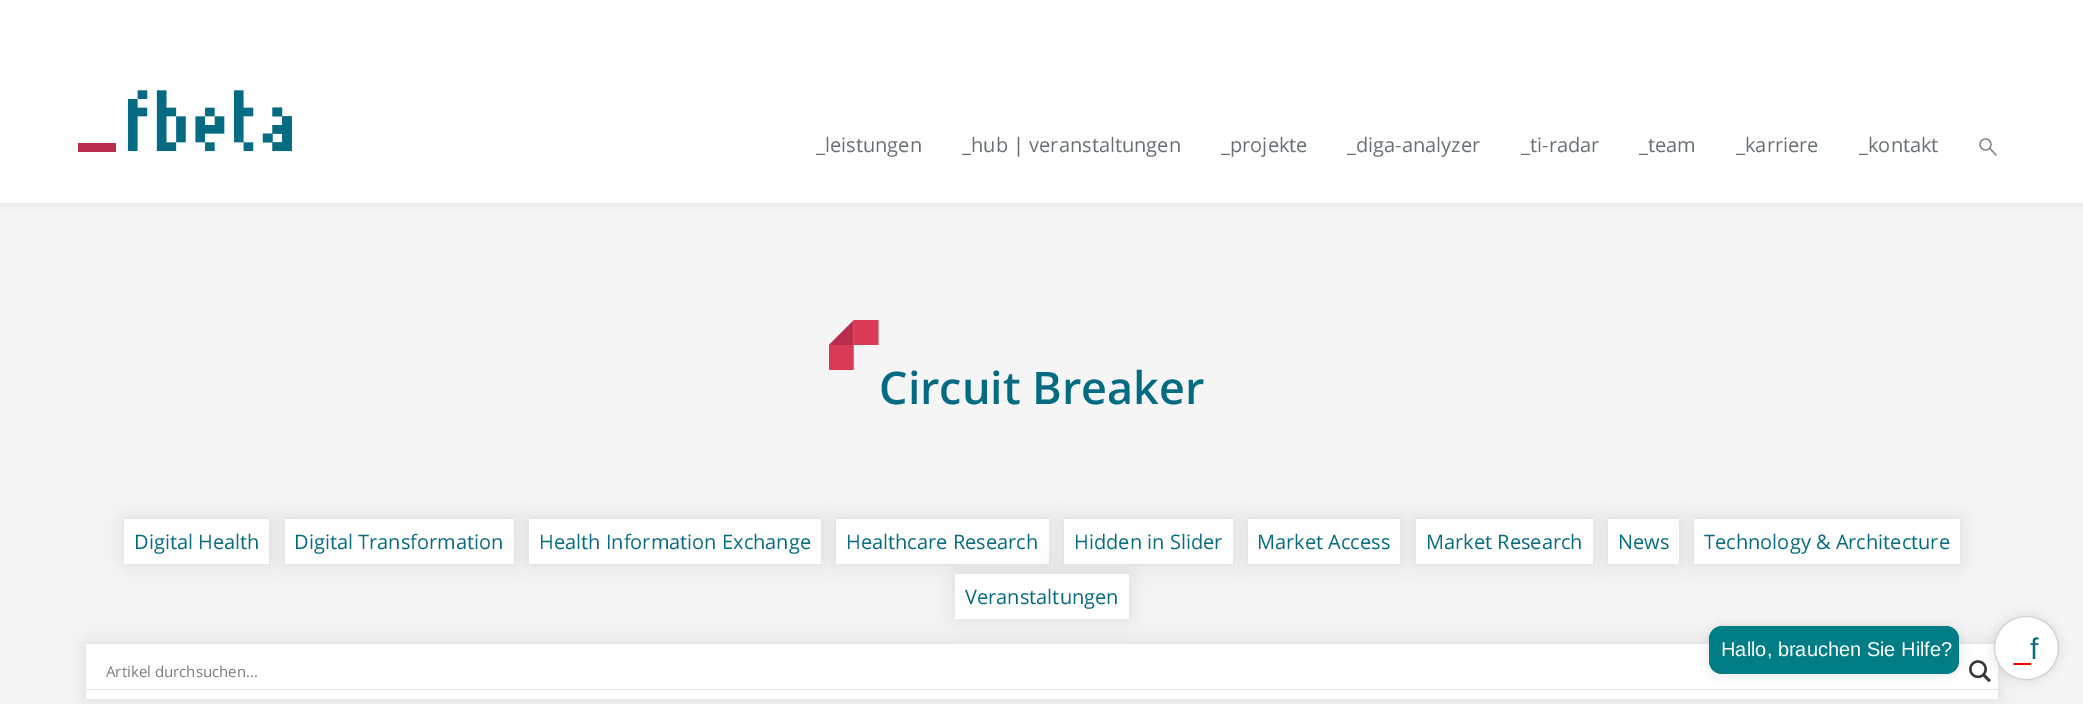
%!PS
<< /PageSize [2083 704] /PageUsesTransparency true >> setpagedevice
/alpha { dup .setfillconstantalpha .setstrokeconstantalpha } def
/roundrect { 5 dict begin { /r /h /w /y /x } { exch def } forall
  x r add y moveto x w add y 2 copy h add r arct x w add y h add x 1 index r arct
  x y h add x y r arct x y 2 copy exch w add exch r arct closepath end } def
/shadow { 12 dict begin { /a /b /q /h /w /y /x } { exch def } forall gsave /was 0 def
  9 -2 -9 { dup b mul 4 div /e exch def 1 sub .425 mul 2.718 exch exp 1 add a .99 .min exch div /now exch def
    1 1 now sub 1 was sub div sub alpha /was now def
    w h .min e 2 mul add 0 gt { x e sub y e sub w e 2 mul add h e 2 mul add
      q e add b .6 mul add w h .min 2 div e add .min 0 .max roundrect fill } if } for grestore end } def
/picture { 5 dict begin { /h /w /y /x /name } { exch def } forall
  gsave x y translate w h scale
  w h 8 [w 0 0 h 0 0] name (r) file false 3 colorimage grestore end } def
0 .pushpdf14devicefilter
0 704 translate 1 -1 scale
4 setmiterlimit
0.961 setgray
0 0 2083 704 rectfill
0 setgray
0 0 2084 203 0 5 0.1 shadow
1 setgray
0 0 2083 203 rectfill
(img1.rgb) 78 90 214 62 picture
/OpenSans-Regular [20 0 0 -20 0 0] selectfont
0.408 0.435 0.451 setrgbcolor
816 152 moveto (_leistungen) show
962 152 moveto (_hub | veranstaltungen) show
1221 152 moveto (_projekte) show
1347 152 moveto (_diga-analyzer) show
1521 152 moveto (_ti-radar) show
1639 152 moveto (_team) show
1736 152 moveto (_karriere) show
1859 152 moveto (_kontakt) show
0.498 setgray
1.2 setlinewidth
1 setlinecap
newpath 1989.5 148 moveto 1996 155 lineto stroke
0 setlinecap
newpath 1985.5 144.5 5.5 0 360 arc closepath stroke
(img2.rgb) 829 320 50 50 picture
/OpenSans-SemiBold [45 0 0 -45 0 0] selectfont
0.02 0.42 0.51 setrgbcolor
879 404 moveto (Circuit Breaker) show
0 setgray
124 519 145 45 0 10 0.1 shadow
1 setgray
124 519 145 45 rectfill
/OpenSans-Regular [20 0 0 -20 0 0] selectfont
0.02 0.42 0.51 setrgbcolor
134 549 moveto (Digital Health) show
0 setgray
285 519 229 45 0 10 0.1 shadow
1 setgray
285 519 229 45 rectfill
0.02 0.42 0.51 setrgbcolor
294 549 moveto (Digital Transformation) show
0 setgray
529 519 292 45 0 10 0.1 shadow
1 setgray
529 519 292 45 rectfill
0.02 0.42 0.51 setrgbcolor
539 549 moveto (Health Information Exchange) show
0 setgray
836 519 213 45 0 10 0.1 shadow
1 setgray
836 519 213 45 rectfill
0.02 0.42 0.51 setrgbcolor
846 549 moveto (Healthcare Research) show
0 setgray
1064 519 169 45 0 10 0.1 shadow
1 setgray
1064 519 169 45 rectfill
0.02 0.42 0.51 setrgbcolor
1074 549 moveto (Hidden in Slider) show
0 setgray
1248 519 152 45 0 10 0.1 shadow
1 setgray
1248 519 152 45 rectfill
0.02 0.42 0.51 setrgbcolor
1257 549 moveto (Market Access) show
0 setgray
1416 519 177 45 0 10 0.1 shadow
1 setgray
1416 519 177 45 rectfill
0.02 0.42 0.51 setrgbcolor
1426 549 moveto (Market Research) show
0 setgray
1608 519 71 45 0 10 0.1 shadow
1 setgray
1608 519 71 45 rectfill
0.02 0.42 0.51 setrgbcolor
1618 549 moveto (News) show
0 setgray
1694 519 266 45 0 10 0.1 shadow
1 setgray
1694 519 266 45 rectfill
0.02 0.42 0.51 setrgbcolor
1704 549 moveto (Technology & Architecture) show
0 setgray
86 644 1912 55 0 10 0.1 shadow
1 setgray
86 644 1912 55 rectfill
0 setgray
955 574 174 45 0 10 0.1 shadow
1 setgray
955 574 174 45 rectfill
0.02 0.42 0.51 setrgbcolor
965 604 moveto (Veranstaltungen) show
0.894 setgray
newpath 86 655 moveto 86 690 lineto 1998 690 lineto 1998 655 lineto 1998 689 lineto 86 689 lineto closepath fill
/OpenSans-Regular [15 0 0 -15 0 0] selectfont
0.49 setgray
106 677 moveto (Artikel durchsuchen...) show
(img3.rgb) 1969 660 22 23 picture
0 setgray
1709 626 250 48 13 6 0.1 shadow
0 0.49 0.522 setrgbcolor
1709 626 250 48 13 roundrect fill
/LiberationSans-Regular [20 0 0 -20 0 0] selectfont
1 setgray
1721 656 moveto (Hallo, brauchen Sie Hilfe?) show
0 setgray
1994 616 65 64 32 6 0.1 shadow
1 setgray
1994.5 616.5 64 63 31.5 roundrect gsave fill grestore
0.816 setgray
1 setlinewidth
stroke
/LiberationSans-Regular [30 0 0 -30 0 0] selectfont
0.02 0.42 0.51 setrgbcolor
2030 659 moveto (f) show
1 0 0 setrgbcolor
2014 659 moveto (_) show
.poppdf14devicefilter showpage
